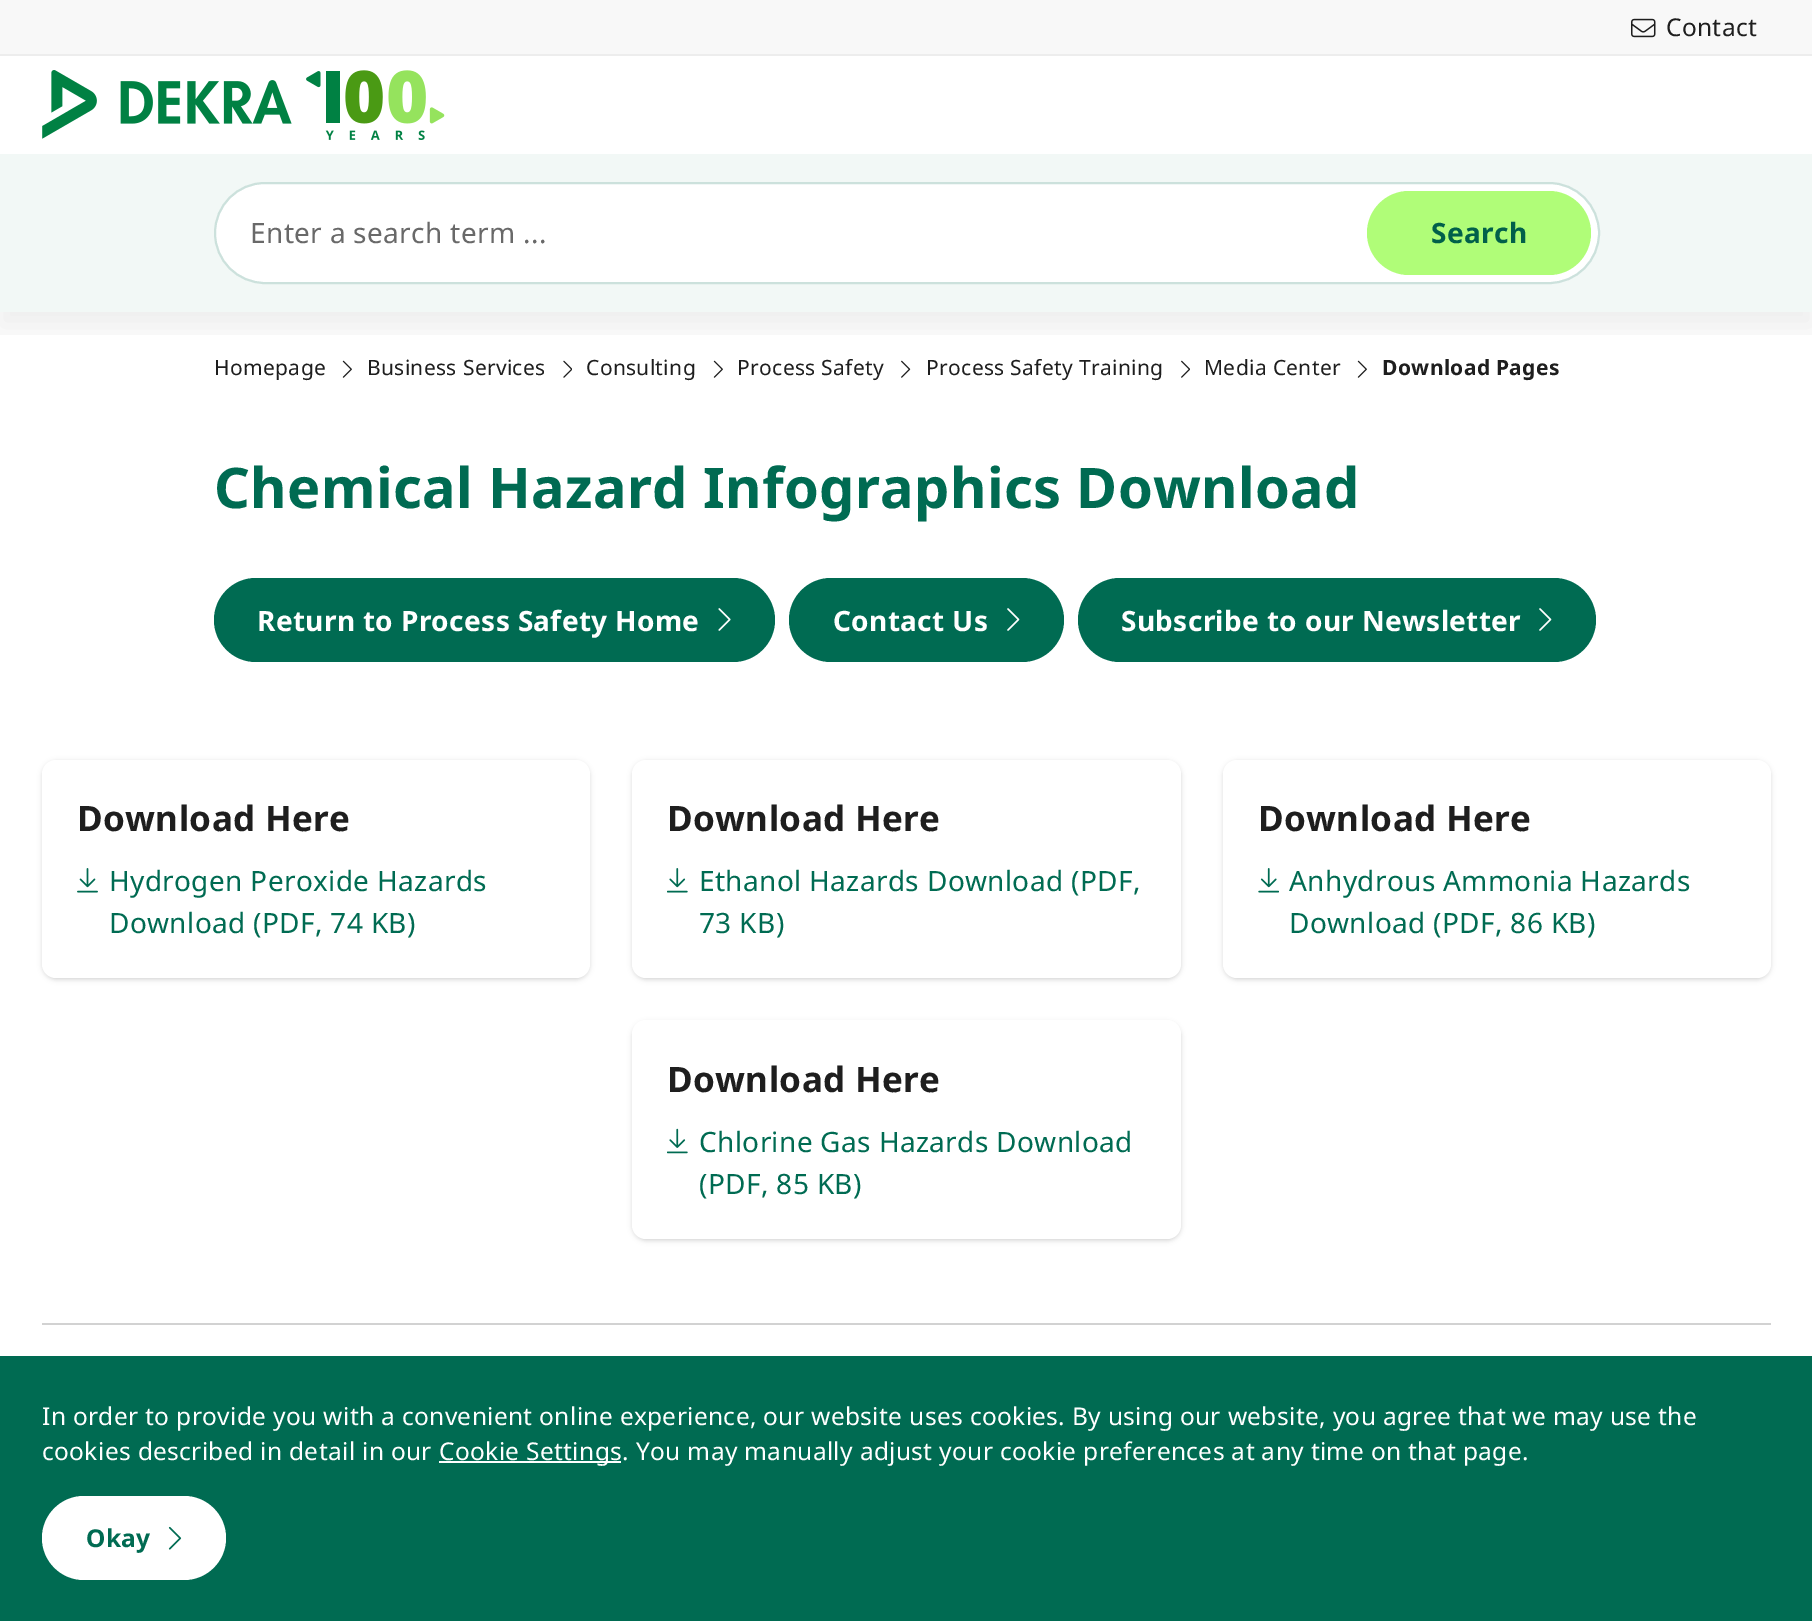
%!PS
<< /PageSize [1812 1621] /PageUsesTransparency true >> setpagedevice
/alpha { dup .setfillconstantalpha .setstrokeconstantalpha } def
/roundrect { 5 dict begin { /r /h /w /y /x } { exch def } forall
  x r add y moveto x w add y 2 copy h add r arct x w add y h add x 1 index r arct
  x y h add x y r arct x y 2 copy exch w add exch r arct closepath end } def
/shadow { 12 dict begin { /a /b /q /h /w /y /x } { exch def } forall gsave /was 0 def
  9 -2 -9 { dup b mul 4 div /e exch def 1 sub .425 mul 2.718 exch exp 1 add a .99 .min exch div /now exch def
    1 1 now sub 1 was sub div sub alpha /was now def
    w h .min e 2 mul add 0 gt { x e sub y e sub w e 2 mul add h e 2 mul add
      q e add b .6 mul add w h .min 2 div e add .min 0 .max roundrect fill } if } for grestore end } def
/picture { 5 dict begin { /h /w /y /x /name } { exch def } forall
  gsave x y translate w h scale
  w h 8 [w 0 0 h 0 0] name (r) file false 3 colorimage grestore end } def
0 .pushpdf14devicefilter
0 1621 translate 1 -1 scale
4 setmiterlimit
1 setgray
0 0 1812 1621 rectfill
(img3.rgb) 342 360 10 18 picture
(img4.rgb) 563 360 9 18 picture
(img3.rgb) 713 360 10 18 picture
(img5.rgb) 901 360 10 18 picture
(img6.rgb) 1181 360 9 18 picture
(img3.rgb) 1357 360 10 18 picture
gsave
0 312 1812 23 rectclip
0.118 setgray
0 14 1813 312 0 14 0.08 shadow
grestore
0.973 setgray
0 0 1812 54 rectfill
0.929 setgray
0 54 1812 2 rectfill
(img1.rgb) 1631 18 25 20 picture
/NotoSans-Regular [24.5 0 0 -24.5 0 0] selectfont
0.118 setgray
1666 36 moveto 0.35 0 (Contact) ashow
(img2.rgb) 42 70 403 70 picture
0.949 0.973 0.965 setrgbcolor
0 154 1812 158 rectfill
1 setgray
215 183 1384 100 50 roundrect gsave fill grestore
0.8 0.882 0.863 setrgbcolor
2 setlinewidth
stroke
/NotoSans-Regular [28 0 0 -28 0 0] selectfont
0.412 setgray
250 243 moveto 0.35 0 (Enter a search term ...) ashow
0.69 0.992 0.471 setrgbcolor
1367 191 224 84 42 roundrect fill
/NotoSans-Bold [28 0 0 -28 0 0] selectfont
0.004 0.376 0.29 setrgbcolor
1431 243 moveto 0.35 0 (Search) ashow
/NotoSans-Regular [21 0 0 -21 0 0] selectfont
0.118 setgray
214 375 moveto 0.35 0 (Homepage) ashow
367 375 moveto 0.35 0 (Business Services) ashow
586 375 moveto 0.35 0 (Consulting) ashow
737 375 moveto 0.35 0 (Process Safety) ashow
926 375 moveto 0.35 0 (Process Safety Training) ashow
1204 375 moveto 0.35 0 (Media Center) ashow
/NotoSans-Bold [21 0 0 -21 0 0] selectfont
1382 375 moveto 0.35 0 (Download Pages) ashow
/NotoSans-Bold [56 0 0 -56 0 0] selectfont
0 0.42 0.322 setrgbcolor
214 508 moveto 0.35 0 (Chemical Hazard Infographics Download) ashow
214 578 561 84 42 roundrect fill
/NotoSans-Bold [28 0 0 -28 0 0] selectfont
1 setgray
257 631 moveto 0.35 0 (Return to Process Safety Home) ashow
(img7.rgb) 718 608 13 23 picture
0 0.42 0.322 setrgbcolor
789 578 275 84 42 roundrect fill
1 setgray
833 631 moveto 0.35 0 (Contact Us) ashow
(img8.rgb) 1007 608 13 23 picture
0 0.42 0.322 setrgbcolor
1078 578 518 84 42 roundrect fill
1 setgray
1121 631 moveto 0.35 0 (Subscribe to our Newsletter) ashow
(img8.rgb) 1539 608 13 23 picture
0 setgray
44 763 544 215 12 2 0.1 shadow
42 761 548 219 14 2.5 0.1 shadow
1 setgray
42 760 548 218 14 roundrect fill
/NotoSans-Bold [35 0 0 -35 0 0] selectfont
0.118 setgray
77 831 moveto 0.35 0 (Download Here) ashow
(img9.rgb) 77 868 21 25 picture
/NotoSans-Regular [28 0 0 -28 0 0] selectfont
0 0.42 0.322 setrgbcolor
109 891 moveto 0.35 0 (Hydrogen Peroxide Hazards) ashow
109 933 moveto 0.35 0 (Download \(PDF, 74 KB\)) ashow
0 setgray
634 763 546 215 12 2 0.1 shadow
632 761 549 219 14 2.5 0.1 shadow
1 setgray
632 760 549 218 14 roundrect fill
/NotoSans-Bold [35 0 0 -35 0 0] selectfont
0.118 setgray
667 831 moveto 0.35 0 (Download Here) ashow
(img10.rgb) 667 868 21 25 picture
/NotoSans-Regular [28 0 0 -28 0 0] selectfont
0 0.42 0.322 setrgbcolor
699 891 moveto 0.35 0 (Ethanol Hazards Download \(PDF,) ashow
699 933 moveto 0.35 0 (73 KB\)) ashow
0 setgray
1225 763 544 215 12 2 0.1 shadow
1223 761 548 219 14 2.5 0.1 shadow
1 setgray
1223 760 548 218 14 roundrect fill
/NotoSans-Bold [35 0 0 -35 0 0] selectfont
0.118 setgray
1258 831 moveto 0.35 0 (Download Here) ashow
(img11.rgb) 1258 868 21 25 picture
/NotoSans-Regular [28 0 0 -28 0 0] selectfont
0 0.42 0.322 setrgbcolor
1289 891 moveto 0.35 0 (Anhydrous Ammonia Hazards) ashow
1289 933 moveto 0.35 0 (Download \(PDF, 86 KB\)) ashow
0 setgray
634 1024 546 215 12 2 0.1 shadow
632 1022 549 219 14 2.5 0.1 shadow
1 setgray
632 1020 549 219 14 roundrect fill
/NotoSans-Bold [35 0 0 -35 0 0] selectfont
0.118 setgray
667 1092 moveto 0.35 0 (Download Here) ashow
(img12.rgb) 667 1128 21 26 picture
/NotoSans-Regular [28 0 0 -28 0 0] selectfont
0 0.42 0.322 setrgbcolor
699 1152 moveto 0.35 0 (Chlorine Gas Hazards Download) ashow
699 1194 moveto 0.35 0 (\(PDF, 85 KB\)) ashow
0.824 setgray
42 1323 1729 2 rectfill
0 0.42 0.322 setrgbcolor
0 1356 1812 265 rectfill
/NotoSans-Regular [24.5 0 0 -24.5 0 0] selectfont
1 setgray
42 1425 moveto 0.35 0 (In order to provide you with a convenient online experience, our website uses cookies. By using our website, you agree that we may use the) ashow
42 1460 moveto 0.35 0 (cookies described in detail in our) ashow
439 1461 182 2 rectfill
439 1460 moveto 0.35 0 (Cookie Settings. You may manually adjust your cookie preferences at any time on that page.) ashow
42 1496 184 84 42 roundrect fill
/NotoSans-Bold [24.5 0 0 -24.5 0 0] selectfont
0 0.42 0.322 setrgbcolor
86 1547 moveto 0.35 0 (Okay) ashow
(img13.rgb) 168 1526 14 24 picture
.poppdf14devicefilter showpage
